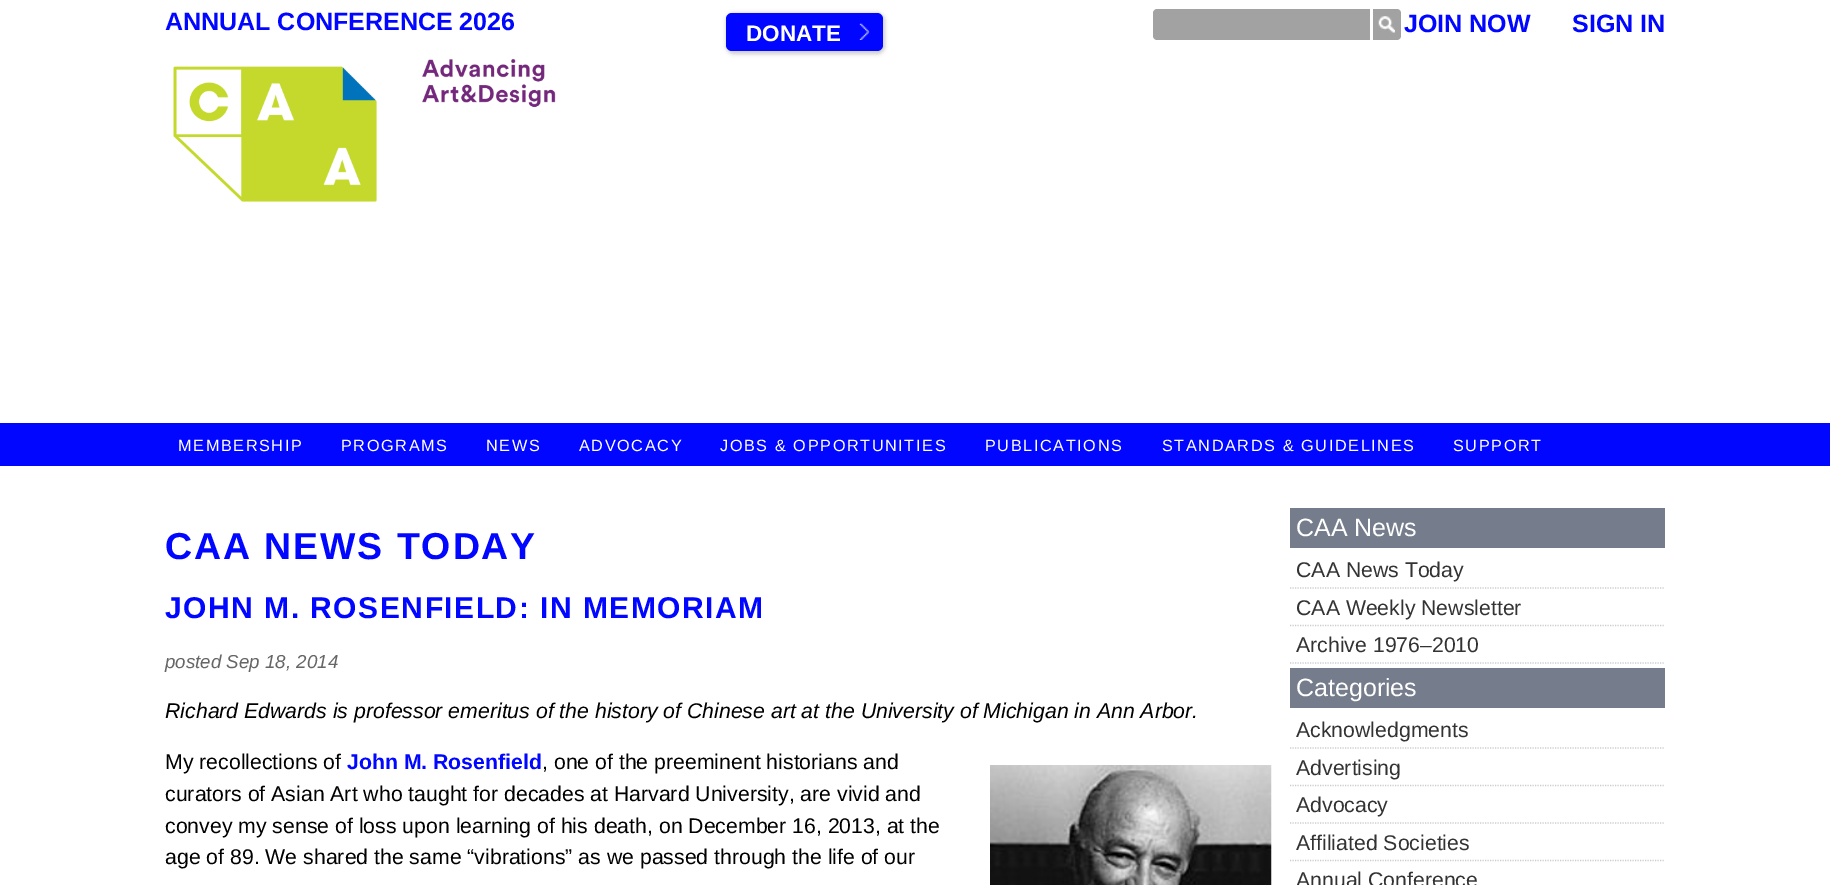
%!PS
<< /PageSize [1830 885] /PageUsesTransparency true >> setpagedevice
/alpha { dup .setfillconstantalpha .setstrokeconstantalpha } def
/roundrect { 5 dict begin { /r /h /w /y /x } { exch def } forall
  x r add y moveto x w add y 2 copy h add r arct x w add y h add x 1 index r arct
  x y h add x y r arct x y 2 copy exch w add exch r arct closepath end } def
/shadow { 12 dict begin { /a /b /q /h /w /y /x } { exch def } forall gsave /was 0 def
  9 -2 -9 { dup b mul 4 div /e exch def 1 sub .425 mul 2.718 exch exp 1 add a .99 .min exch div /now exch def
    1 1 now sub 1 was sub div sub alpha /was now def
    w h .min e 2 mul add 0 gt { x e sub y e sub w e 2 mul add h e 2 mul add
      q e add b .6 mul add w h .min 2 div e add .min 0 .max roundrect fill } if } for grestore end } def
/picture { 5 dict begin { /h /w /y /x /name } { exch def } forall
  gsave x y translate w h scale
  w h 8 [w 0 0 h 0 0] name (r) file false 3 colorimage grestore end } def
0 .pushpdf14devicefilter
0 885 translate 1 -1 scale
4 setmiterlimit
1 setgray
0 0 1830 885 rectfill
/LiberationSans-Bold [25 0 0 -25 0 0] selectfont
0 0.024 1 setrgbcolor
165 30 moveto (ANNUAL CONFERENCE 2026) show
(img1.rgb) 173 58 383 144 picture
0 setgray
726 13 159 41 8 2 0.2 shadow
0 0.024 1 setrgbcolor
726 13 157 38 6 roundrect fill
(img2.rgb) 859 23 11 17 picture
/LiberationSans-Bold [22.5 0 0 -22.5 0 0] selectfont
1 setgray
746 41 moveto (DONATE) show
0.635 setgray
newpath 1157 9 moveto 1370 9 lineto 1370 40 lineto 1157 40 lineto 1155 40 1153 38 1153 36 curveto 1153 13 lineto 1153 11 1155 9 1157 9 curveto closepath fill
newpath 1373 9 moveto 1397 9 lineto 1399 9 1401 11 1401 13 curveto 1401 36 lineto 1401 38 1399 40 1397 40 curveto 1373 40 lineto closepath fill
(img3.rgb) 1378 16 17 17 picture
/LiberationSans-Bold [25 0 0 -25 0 0] selectfont
0 0.024 1 setrgbcolor
1404 32 moveto (JOIN NOW) show
1572 32 moveto (SIGN IN) show
0 423 1830 43 rectfill
/LiberationSans-Regular [16.25 0 0 -16.25 0 0] selectfont
1 setgray
178 451 moveto 1.6 0 (MEMBERSHIP) ashow
341 451 moveto 1.6 0 (PROGRAMS) ashow
486 451 moveto 1.6 0 (NEWS) ashow
579 451 moveto 1.6 0 (ADVOCACY) ashow
720 451 moveto 1.6 0 (JOBS & OPPORTUNITIES) ashow
985 451 moveto 1.6 0 (PUBLICATIONS) ashow
1162 451 moveto 1.6 0 (STANDARDS & GUIDELINES) ashow
1453 451 moveto 1.6 0 (SUPPORT) ashow
/LiberationSans-Bold [37.5 0 0 -37.5 0 0] selectfont
0 0.024 1 setrgbcolor
165 559 moveto 1.9 0 (CAA NEWS TODAY) ashow
/LiberationSans-Bold [30 0 0 -30 0 0] selectfont
165 618 moveto 1.5 0 (JOHN M. ROSENFIELD: IN MEMORIAM) ashow
/LiberationSans-Italic [18.75 0 0 -18.75 0 0] selectfont
0.4 setgray
165 668 moveto (posted Sep 18, 2014) show
/LiberationSans-Italic [21.25 0 0 -21.25 0 0] selectfont
0 setgray
165 718 moveto (Richard Edwards is professor emeritus of the history of Chinese art at the University of Michigan in Ann Arbor.) show
/LiberationSans-Regular [21.25 0 0 -21.25 0 0] selectfont
165 769 moveto (My recollections of) show
/LiberationSans-Bold [21.25 0 0 -21.25 0 0] selectfont
0 0.024 1 setrgbcolor
347 769 moveto (John M. Rosenfield) show
/LiberationSans-Regular [21.25 0 0 -21.25 0 0] selectfont
0 setgray
542 769 moveto (, one of the preeminent historians and) show
165 801 moveto (curators of Asian Art who taught for decades at Harvard University, are vivid and) show
165 833 moveto (convey my sense of loss upon learning of his death, on December 16, 2013, at the) show
165 864 moveto (age of 89. We shared the same “vibrations” as we passed through the life of our) show
(img4.rgb) 990 765 282 120 picture
0.459 0.486 0.545 setrgbcolor
1290 508 375 40 rectfill
/LiberationSans-Regular [25 0 0 -25 0 0] selectfont
1 setgray
1296 536 moveto (CAA News) show
0.8 setgray
1.2 setlinewidth
[1.25 1.25] 0 setdash
newpath 1290 588 moveto 1665 588 lineto stroke
/LiberationSans-Regular [21.25 0 0 -21.25 0 0] selectfont
0.2 setgray
1296 577 moveto (CAA News Today) show
0.8 setgray
newpath 1290 625.5 moveto 1665 625.5 lineto stroke
0.2 setgray
1296 615 moveto (CAA Weekly Newsletter) show
0.8 setgray
newpath 1290 663 moveto 1665 663 lineto stroke
0.2 setgray
1296 652 moveto (Archive 1976–2010) show
0.459 0.486 0.545 setrgbcolor
1290 668 375 40 rectfill
/LiberationSans-Regular [25 0 0 -25 0 0] selectfont
1 setgray
1296 696 moveto (Categories) show
0.8 setgray
newpath 1290 748 moveto 1665 748 lineto stroke
/LiberationSans-Regular [21.25 0 0 -21.25 0 0] selectfont
0.2 setgray
1296 737 moveto (Acknowledgments) show
0.8 setgray
newpath 1290 785.5 moveto 1665 785.5 lineto stroke
0.2 setgray
1296 775 moveto (Advertising) show
0.8 setgray
newpath 1290 823 moveto 1665 823 lineto stroke
0.2 setgray
1296 812 moveto (Advocacy) show
0.8 setgray
newpath 1290 860.5 moveto 1665 860.5 lineto stroke
0.2 setgray
1296 850 moveto (Affiliated Societies) show
1296 887 moveto (Annual Conference) show
.poppdf14devicefilter showpage
